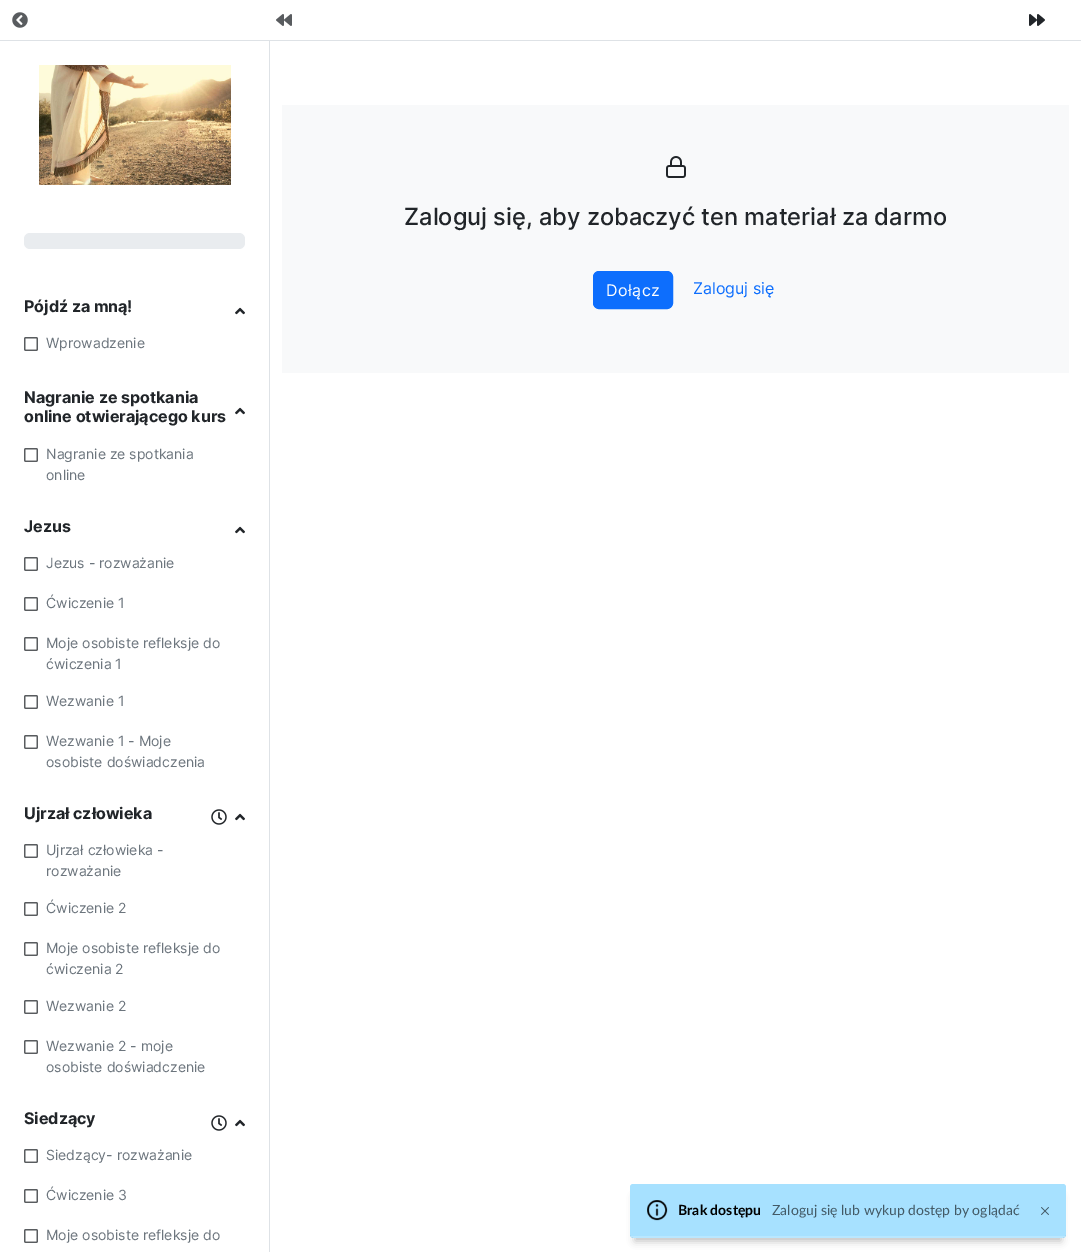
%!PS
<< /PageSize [1081 1253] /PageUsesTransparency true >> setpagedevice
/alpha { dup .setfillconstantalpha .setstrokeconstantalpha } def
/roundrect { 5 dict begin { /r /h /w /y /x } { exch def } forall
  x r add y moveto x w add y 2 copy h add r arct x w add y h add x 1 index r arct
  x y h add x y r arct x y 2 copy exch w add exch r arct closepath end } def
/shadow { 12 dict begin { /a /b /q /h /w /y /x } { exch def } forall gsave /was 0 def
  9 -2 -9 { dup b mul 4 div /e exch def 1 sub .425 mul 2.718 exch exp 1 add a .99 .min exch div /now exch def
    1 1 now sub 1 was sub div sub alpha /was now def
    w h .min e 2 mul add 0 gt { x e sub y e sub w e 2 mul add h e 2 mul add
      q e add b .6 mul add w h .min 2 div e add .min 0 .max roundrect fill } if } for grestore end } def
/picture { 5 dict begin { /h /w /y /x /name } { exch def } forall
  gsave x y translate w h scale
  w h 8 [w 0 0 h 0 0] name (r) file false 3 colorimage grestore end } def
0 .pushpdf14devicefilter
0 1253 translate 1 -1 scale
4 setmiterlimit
1 setgray
0 0 1081 1253 rectfill
0.871 0.886 0.902 setrgbcolor
0 40 1081 1 rectfill
(img1.rgb) 12 12 16 16 picture
(img2.rgb) 276 14 16 12 picture
(img3.rgb) 1029 14 16 12 picture
0.973 0.976 0.98 setrgbcolor
282 105 787 268 rectfill
(img4.rgb) 666 156 20 22 picture
/Inter-Medium [23.6 0 0 -23.6 0 0] selectfont
0.129 0.145 0.161 setrgbcolor
404 225 moveto (Zaloguj się, aby zobaczyć ten materiał za darmo) show
0.051 0.431 0.992 setrgbcolor
593.5 271.5 79 37 5.5 roundrect gsave fill grestore
stroke
/Inter-Regular [16 0 0 -16 0 0] selectfont
1 setgray
606 296 moveto 0.5 0 (Dołącz) ashow
0.051 0.431 0.992 setrgbcolor
693 294 moveto (Zaloguj się) show
0.871 0.886 0.902 setrgbcolor
269 41 1 1211 rectfill
(img5.rgb) 39 65 192 120 picture
0.914 0.925 0.937 setrgbcolor
24 233 221 16 6 roundrect fill
/Inter-Bold [16 0 0 -16 0 0] selectfont
0.129 0.145 0.161 setrgbcolor
24 312 moveto (Pójdź za mną!) show
(img6.rgb) 235 307 10 8 picture
(img7.rgb) 24 337 14 14 picture
/Inter-Regular [14 0 0 -14 0 0] selectfont
0.424 0.459 0.49 setrgbcolor
46 348 moveto (Wprowadzenie) show
/Inter-Bold [16 0 0 -16 0 0] selectfont
0.129 0.145 0.161 setrgbcolor
24 403 moveto (Nagranie ze spotkania) show
24 422 moveto (online otwierającego kurs) show
(img6.rgb) 235 407 10 8 picture
(img7.rgb) 24 448 14 14 picture
/Inter-Regular [14 0 0 -14 0 0] selectfont
0.424 0.459 0.49 setrgbcolor
46 459 moveto (Nagranie ze spotkania) show
46 480 moveto (online) show
/Inter-Bold [16 0 0 -16 0 0] selectfont
0.129 0.145 0.161 setrgbcolor
24 532 moveto (Jezus) show
(img6.rgb) 235 526 10 8 picture
(img7.rgb) 24 557 14 14 picture
/Inter-Regular [14 0 0 -14 0 0] selectfont
0.424 0.459 0.49 setrgbcolor
46 568 moveto (Jezus - rozważanie) show
(img7.rgb) 24 597 14 14 picture
46 608 moveto (Ćwiczenie 1) show
(img7.rgb) 24 637 14 14 picture
46 648 moveto (Moje osobiste refleksje do) show
46 669 moveto (ćwiczenia 1) show
(img7.rgb) 24 695 14 14 picture
46 706 moveto (Wezwanie 1) show
(img7.rgb) 24 735 14 14 picture
46 746 moveto (Wezwanie 1 - Moje) show
46 767 moveto (osobiste doświadczenia) show
/Inter-Bold [16 0 0 -16 0 0] selectfont
0.129 0.145 0.161 setrgbcolor
24 819 moveto (Ujrzał człowieka) show
(img8.rgb) 211 809 16 16 picture
(img6.rgb) 235 813 10 8 picture
(img7.rgb) 24 844 14 14 picture
/Inter-Regular [14 0 0 -14 0 0] selectfont
0.424 0.459 0.49 setrgbcolor
46 855 moveto (Ujrzał człowieka -) show
46 876 moveto (rozważanie) show
(img7.rgb) 24 902 14 14 picture
46 913 moveto (Ćwiczenie 2) show
(img7.rgb) 24 942 14 14 picture
46 953 moveto (Moje osobiste refleksje do) show
46 974 moveto (ćwiczenia 2) show
(img7.rgb) 24 1000 14 14 picture
46 1011 moveto (Wezwanie 2) show
(img7.rgb) 24 1040 14 14 picture
46 1051 moveto (Wezwanie 2 - moje) show
46 1072 moveto (osobiste doświadczenie) show
/Inter-Bold [16 0 0 -16 0 0] selectfont
0.129 0.145 0.161 setrgbcolor
24 1124 moveto (Siedzący) show
(img8.rgb) 211 1115 16 16 picture
(img6.rgb) 235 1119 10 8 picture
(img7.rgb) 24 1149 14 14 picture
/Inter-Regular [14 0 0 -14 0 0] selectfont
0.424 0.459 0.49 setrgbcolor
46 1160 moveto (Siedzący- rozważanie) show
(img7.rgb) 24 1189 14 14 picture
46 1200 moveto (Ćwiczenie 3) show
(img7.rgb) 24 1229 14 14 picture
46 1240 moveto (Moje osobiste refleksje do) show
0.655 0.882 1 setrgbcolor
630 1184 436 54 3 roundrect fill
gsave
newpath 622 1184 moveto 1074 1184 lineto 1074 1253 lineto 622 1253 lineto closepath 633 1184 moveto 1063 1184 lineto 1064.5 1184 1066 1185.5 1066 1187 curveto 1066 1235 lineto 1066 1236.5 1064.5 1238 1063 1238 curveto 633 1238 lineto 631.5 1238 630 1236.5 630 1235 curveto 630 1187 lineto 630 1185.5 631.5 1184 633 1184 curveto closepath eoclip newpath
0 setgray
635 1197 426 44 0 4 0.25 shadow
grestore
(img9.rgb) 647 1200 21 21 picture
/Lato-Bold [14 0 0 -14 0 0] selectfont
0 setgray
678 1215 moveto (Brak dostępu) show
/Lato-Regular [14 0 0 -14 0 0] selectfont
0.263 0.353 0.4 setrgbcolor
772 1215 moveto (Zaloguj się lub wykup dostęp by oglądać) show
(img10.rgb) 1041 1207 8 8 picture
0.2 alpha
1 setgray
630 1236 436 2 rectfill
.poppdf14devicefilter showpage
